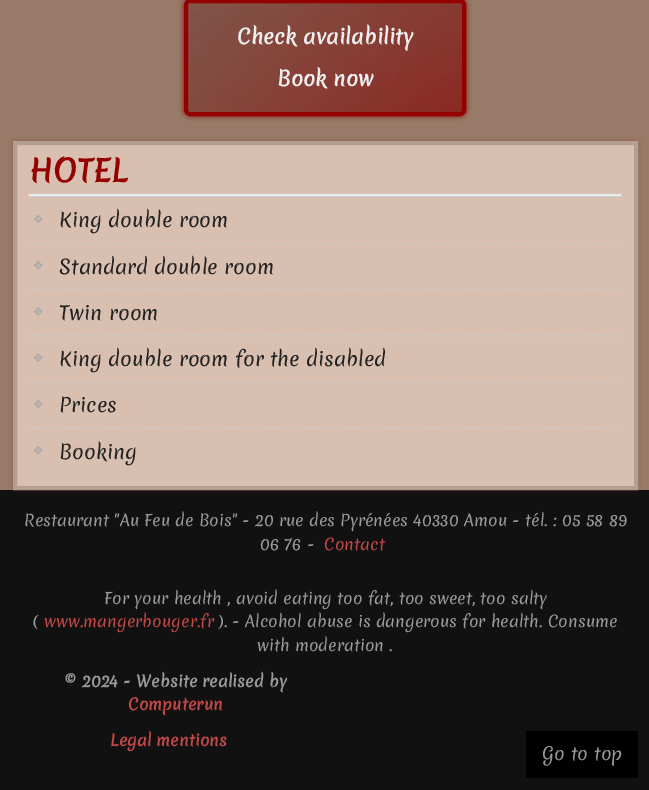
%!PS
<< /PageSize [649 790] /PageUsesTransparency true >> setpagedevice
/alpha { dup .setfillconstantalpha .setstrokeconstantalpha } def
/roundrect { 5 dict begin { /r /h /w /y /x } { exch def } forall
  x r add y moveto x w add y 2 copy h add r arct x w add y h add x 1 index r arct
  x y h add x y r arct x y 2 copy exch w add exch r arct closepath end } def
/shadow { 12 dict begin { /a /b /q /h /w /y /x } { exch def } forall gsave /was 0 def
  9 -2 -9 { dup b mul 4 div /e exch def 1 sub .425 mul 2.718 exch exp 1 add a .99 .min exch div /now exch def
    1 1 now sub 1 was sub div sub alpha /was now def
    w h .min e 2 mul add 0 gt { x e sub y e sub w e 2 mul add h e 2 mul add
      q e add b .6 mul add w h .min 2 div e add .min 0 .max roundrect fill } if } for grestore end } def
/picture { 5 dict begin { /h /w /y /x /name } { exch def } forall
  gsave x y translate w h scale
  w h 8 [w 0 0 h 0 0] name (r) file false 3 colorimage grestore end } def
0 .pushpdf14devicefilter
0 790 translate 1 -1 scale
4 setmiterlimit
0.592 0.478 0.404 setrgbcolor
0 0 649 790 rectfill
0.58 0 0 setrgbcolor
184 -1 282 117 6 2.5 1 shadow
(img1.rgb) 184 0 282 116 picture
4 setlinewidth
186 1 278 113 4 roundrect stroke
/Merienda-Bold [20 0 0 -20 0 0] selectfont
0.933 setgray
237 44 moveto (Check availability) show
277 86 moveto (Book now) show
0.067 setgray
0 490 649 300 rectfill
0.58 0 0 setrgbcolor
13 141 625 349 0 2.5 0.2 shadow
0.847 0.749 0.686 setrgbcolor
newpath 15 143 moveto 636 143 lineto 636 488 lineto 15 488 lineto closepath gsave fill grestore
0.702 0.624 0.569 setrgbcolor
stroke
(img2.rgb) 28 193 594 4 picture
/Merienda-Bold [30 0 0 -30 0 0] selectfont
0.58 0 0 setrgbcolor
29 182 moveto (HOTEL) show
0.8 setgray
1.2 setlinewidth
[1.25 1.25] 0 setdash
newpath 29 243 moveto 621 243 lineto stroke
(img3.rgb) 33 214 10 10 picture
/Merienda-Regular [19.25 0 0 -19.25 0 0] selectfont
0.133 setgray
59 227 moveto (King double room) show
0.8 setgray
newpath 29 289.5 moveto 621 289.5 lineto stroke
(img4.rgb) 33 260 10 10 picture
0.133 setgray
59 274 moveto (Standard double room) show
0.8 setgray
newpath 29 335.5 moveto 621 335.5 lineto stroke
(img5.rgb) 33 307 10 9 picture
0.133 setgray
59 320 moveto (Twin room) show
0.8 setgray
newpath 29 382 moveto 621 382 lineto stroke
(img6.rgb) 33 353 10 10 picture
0.133 setgray
59 366 moveto (King double room for the disabled) show
0.8 setgray
newpath 29 428 moveto 621 428 lineto stroke
(img3.rgb) 33 399 10 10 picture
0.133 setgray
59 412 moveto (Prices) show
(img4.rgb) 33 445 10 10 picture
59 459 moveto (Booking) show
/Merienda-Regular [15.6 0 0 -15.6 0 0] selectfont
0.6 setgray
24 526 moveto (Restaurant "Au Feu de Bois" - 20 rue des Pyrénées 40330 Amou - tél. : 05 58 89) show
260 550 moveto (06 76 -) show
0.757 0.278 0.275 setrgbcolor
324 550 moveto (Contact) show
0.6 setgray
104 604 moveto (For your health , avoid eating too fat, too sweet, too salty) show
33 627 moveto (\() show
0.757 0.278 0.275 setrgbcolor
44 627 moveto (www.mangerbouger.fr) show
0.6 setgray
218 627 moveto (\). - Alcohol abuse is dangerous for health. Consume) show
257 651 moveto (with moderation .) show
/Merienda-Bold [15.6 0 0 -15.6 0 0] selectfont
64 687 moveto (© 2024 - Website realised by) show
0.757 0.278 0.275 setrgbcolor
128 710 moveto (Computerun) show
110 746 moveto (Legal mentions) show
0 setgray
526 731 112 47 rectfill
/Merienda-Regular [17.5 0 0 -17.5 0 0] selectfont
0.6 setgray
542 760 moveto (Go to top) show
.poppdf14devicefilter showpage
